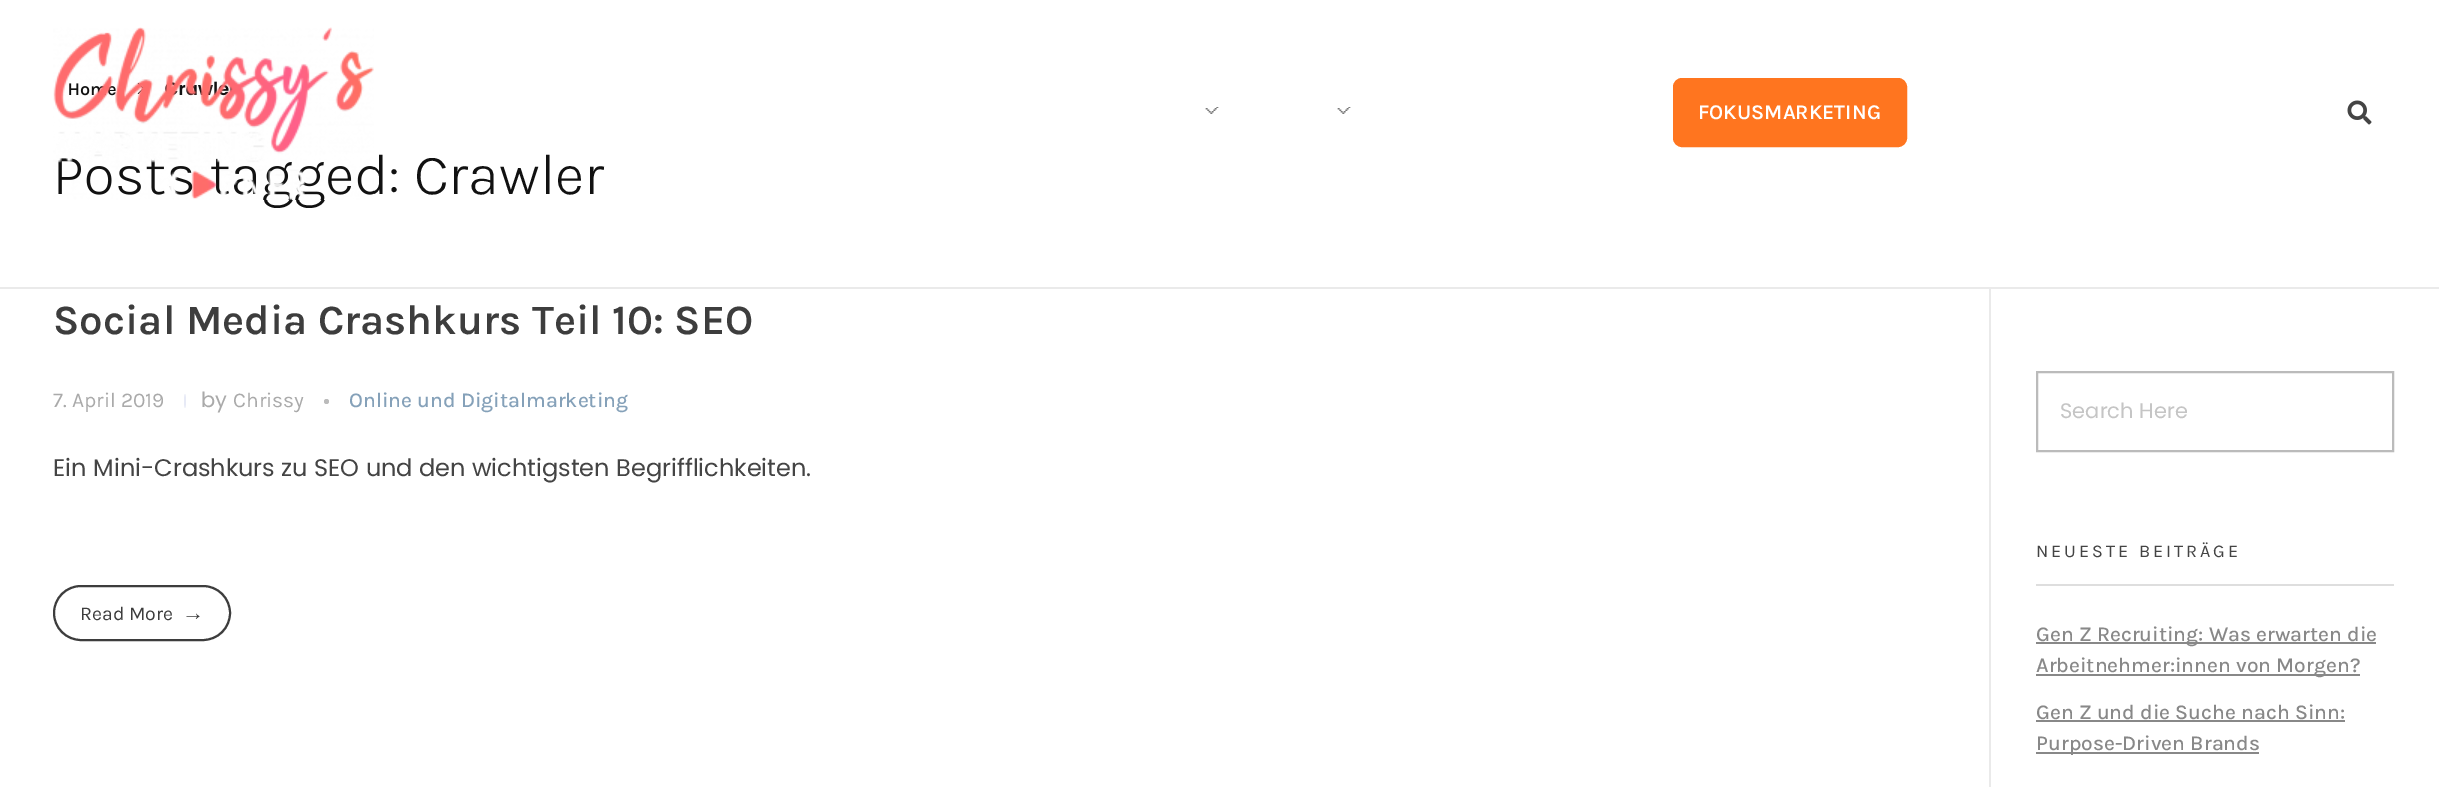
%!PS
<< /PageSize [2439 787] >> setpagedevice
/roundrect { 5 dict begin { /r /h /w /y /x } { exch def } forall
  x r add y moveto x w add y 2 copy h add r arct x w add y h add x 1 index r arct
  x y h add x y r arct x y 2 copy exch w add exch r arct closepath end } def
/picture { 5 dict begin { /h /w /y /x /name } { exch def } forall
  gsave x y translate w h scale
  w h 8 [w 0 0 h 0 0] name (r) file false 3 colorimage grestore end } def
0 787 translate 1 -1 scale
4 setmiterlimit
1 setgray
0 0 2439 787 rectfill
0.918 setgray
0 287 2439 2 rectfill
/Karla-SemiBold [18 0 0 -18 0 0] selectfont
0.067 setgray
68 95 moveto (Home) show
(img1.rgb) 137 83 6 11 picture
/Poppins-SemiBold [18 0 0 -18 0 0] selectfont
178 95 moveto (r) show
/Karla-Light [57.6 0 0 -57.6 0 0] selectfont
53 194 moveto (Posts tagged: Crawler) show
(img2.rgb) 53 27 321 173 picture
(img3.rgb) 1205 107 14 7 picture
(img3.rgb) 1337 107 14 7 picture
1 0.459 0.122 setrgbcolor
1674 79 232 67 8 roundrect gsave fill grestore
2 setlinewidth
stroke
/Karla-SemiBold [21 0 0 -21 0 0] selectfont
1 setgray
1698 119 moveto (FOKUSMARKETING) show
(img4.rgb) 2347 100 25 25 picture
/Karla-SemiBold [42 0 0 -42 0 0] selectfont
0.239 setgray
53 334 moveto (Social Media Crashkurs Teil 10: SEO) show
/Karla-Regular [21 0 0 -21 0 0] selectfont
0.667 setgray
53 407 moveto (7. April 2019) show
0.906 0.918 0.965 setrgbcolor
newpath 185 394 moveto 185.5 394 186 397 186 401 curveto 186 405 185.5 408 185 408 curveto 184.5 408 184 405 184 401 curveto 184 397 184.5 394 185 394 curveto closepath fill
/Poppins-Regular [21 0 0 -21 0 0] selectfont
0.667 setgray
201 407 moveto (by) show
/Karla-Regular [21 0 0 -21 0 0] selectfont
233 407 moveto (Chrissy) show
0.733 setgray
newpath 326.5 401.5 2.5 0 360 arc closepath fill
/Karla-Medium [21 0 0 -21 0 0] selectfont
0.522 0.631 0.725 setrgbcolor
349 407 moveto (Online und Digitalmarketing) show
/Poppins-Regular [24 0 0 -24 0 0] selectfont
0.267 setgray
53 476 moveto (Ein Mini-Crashkurs zu SEO und den wichtigsten Begrifflichkeiten.) show
0.239 setgray
54 586 176 54 27 roundrect stroke
/Karla-Regular [19.5 0 0 -19.5 0 0] selectfont
80 620 moveto (Read More) show
/LiberationSans-Regular [22 0 0 -22 0 0] selectfont
182 620 moveto (→) show
0.918 setgray
1989 288 2 499 rectfill
0.733 setgray
2037 372 356 79 rectstroke
/Poppins-Regular [21 0 0 -21 0 0] selectfont
0.773 setgray
2060 418 moveto (Search Here) show
0.871 setgray
2036 584 358 2 rectfill
/Karla-Regular [18 0 0 -18 0 0] selectfont
0.267 setgray
2036 557 moveto 3 0 (NEUESTE BEITRÄGE) ashow
0.533 setgray
2036 642 340 2 rectfill
/Karla-Medium [21 0 0 -21 0 0] selectfont
2036 641 moveto (Gen Z Recruiting: Was erwarten die) show
2036 674 324 2 rectfill
2036 672 moveto (Arbeitnehmer:innen von Morgen?) show
2036 719 moveto (Gen Z und die Suche nach Sinn:) show
2036 720 309 2 rectfill
2036 752 223 2 rectfill
2036 750 moveto (Purpose-Driven Brands) show
showpage
